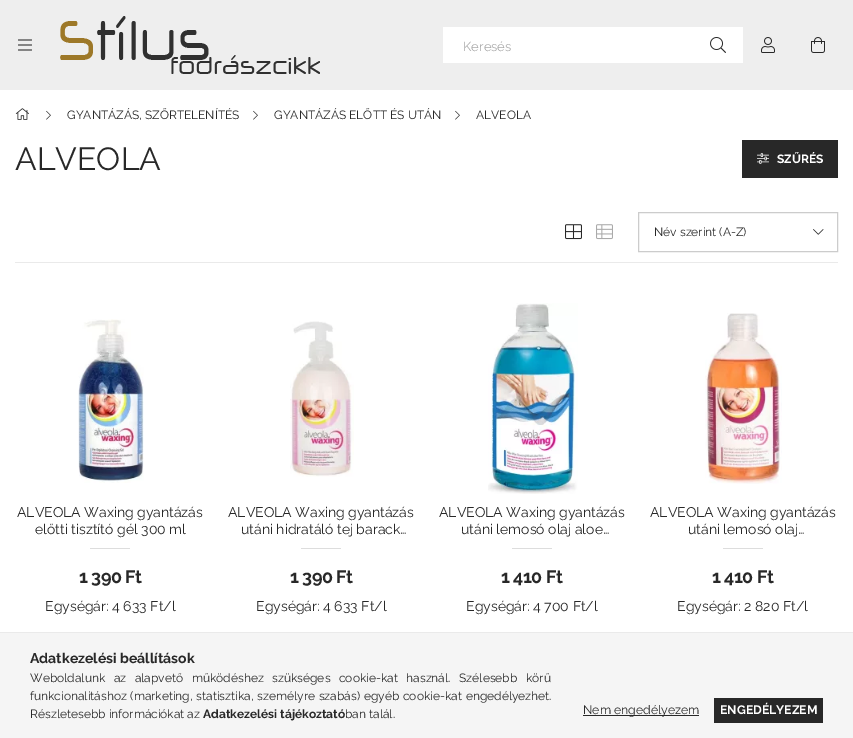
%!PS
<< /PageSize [853 738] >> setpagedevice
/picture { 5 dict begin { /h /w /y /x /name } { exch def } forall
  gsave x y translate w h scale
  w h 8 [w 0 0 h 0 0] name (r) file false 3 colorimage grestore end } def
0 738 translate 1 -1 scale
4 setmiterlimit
1 setgray
0 0 853 738 rectfill
0.933 setgray
0 0 853 90 rectfill
(img1.rgb) 18 39 14 12 picture
(img2.rgb) 60 16 260 58 picture
1 setgray
443 27 300 36 rectfill
/Raleway-Regular [13 0 0 -13 0 0] selectfont
0.667 setgray
463 51 moveto (Keresés) show
(img3.rgb) 710 37 16 16 picture
(img4.rgb) 761 37 14 16 picture
(img5.rgb) 811 37 14 16 picture
(img6.rgb) 15 108 14 12 picture
(img7.rgb) 46 110 5 10 picture
/Raleway-Regular [12 0 0 -12 0 0] selectfont
0.157 setgray
67 119 moveto (GYANTÁZÁS, SZŐRTELENÍTÉS) show
(img7.rgb) 253 110 5 10 picture
274 119 moveto (GYANTÁZÁS ELŐTT ÉS UTÁN) show
(img7.rgb) 455 110 5 10 picture
476 119 moveto (ALVEOLA) show
/Raleway-Regular [32 0 0 -32 0 0] selectfont
15 170 moveto (ALVEOLA) show
742 140 96 38 rectfill
(img8.rgb) 757 153 12 11 picture
/Raleway-Bold [12 0 0 -12 0 0] selectfont
1 setgray
777 163 moveto (SZŰRÉS) show
0.918 setgray
15 262 823 1 rectfill
(img9.rgb) 565 224 17 16 picture
(img10.rgb) 596 224 17 16 picture
0.8 setgray
638.5 212.5 199 39 rectstroke
/Raleway-Regular [12 0 0 -12 0 0] selectfont
0.157 setgray
654 236 moveto (Név szerint \(A-Z\)) show
(img11.rgb) 813 229 11 6 picture
(img12.rgb) 78 319 66 164 picture
/Raleway-Regular [14 0 0 -14 0 0] selectfont
17 517 moveto (ALVEOLA Waxing gyantázás) show
35 534 moveto (előtti tisztító gél 300 ml) show
0.867 setgray
90 548 40 1 rectfill
/Raleway-Bold [18 0 0 -18 0 0] selectfont
0.157 setgray
79 583 moveto -0.5 0 (1 390 Ft) ashow
/Raleway-Regular [14 0 0 -14 0 0] selectfont
45 611 moveto (Egységár: 4 633 Ft/l) show
(img13.rgb) 290 321 64 156 picture
228 517 moveto (ALVEOLA Waxing gyantázás) show
241 534 moveto (utáni hidratáló tej barack…) show
0.867 setgray
301 548 40 1 rectfill
/Raleway-Bold [18 0 0 -18 0 0] selectfont
0.157 setgray
290 583 moveto -0.5 0 (1 390 Ft) ashow
/Raleway-Regular [14 0 0 -14 0 0] selectfont
256 611 moveto (Egységár: 4 633 Ft/l) show
(img14.rgb) 488 303 90 191 picture
439 517 moveto (ALVEOLA Waxing gyantázás) show
461 534 moveto (utáni lemosó olaj aloe…) show
0.867 setgray
512 548 40 1 rectfill
/Raleway-Bold [18 0 0 -18 0 0] selectfont
0.157 setgray
501 583 moveto -0.5 0 (1 410 Ft) ashow
/Raleway-Regular [14 0 0 -14 0 0] selectfont
466 611 moveto (Egységár: 4 700 Ft/l) show
(img15.rgb) 705 313 77 171 picture
650 517 moveto (ALVEOLA Waxing gyantázás) show
688 534 moveto (utáni lemosó olaj…) show
0.867 setgray
723 548 40 1 rectfill
/Raleway-Bold [18 0 0 -18 0 0] selectfont
0.157 setgray
712 583 moveto -0.5 0 (1 410 Ft) ashow
/Raleway-Regular [14 0 0 -14 0 0] selectfont
677 611 moveto (Egységár: 2 820 Ft/l) show
0.961 setgray
0 633 853 105 rectfill
0.918 setgray
0 632 853 1 rectfill
/Raleway-Bold [14 0 0 -14 0 0] selectfont
0.157 setgray
30 663 moveto (Adatkezelési beállítások) show
/Raleway-Regular [12 0 0 -12 0 0] selectfont
30 682 moveto 5.5 0 32 (Weboldalunk az alapvető működéshez szükséges cookie-kat használ. Szélesebb körű) widthshow
30 700 moveto 0.75 0 32 (funkcionalitáshoz \(marketing, statisztika, személyre szabás\) egyéb cookie-kat engedélyezhet.) widthshow
30 718 moveto (Részletesebb információkat az) show
/Raleway-Bold [12 0 0 -12 0 0] selectfont
203 718 moveto (Adatkezelési tájékoztató) show
/Raleway-Regular [12 0 0 -12 0 0] selectfont
345 718 moveto (ban talál.) show
583 715 116 1 rectfill
/Raleway-Regular [12.25 0 0 -12.25 0 0] selectfont
583 714 moveto (Nem engedélyezem) show
714 698 109 25 rectfill
/Raleway-Bold [12.25 0 0 -12.25 0 0] selectfont
1 setgray
720 714 moveto (ENGEDÉLYEZEM) show
showpage
